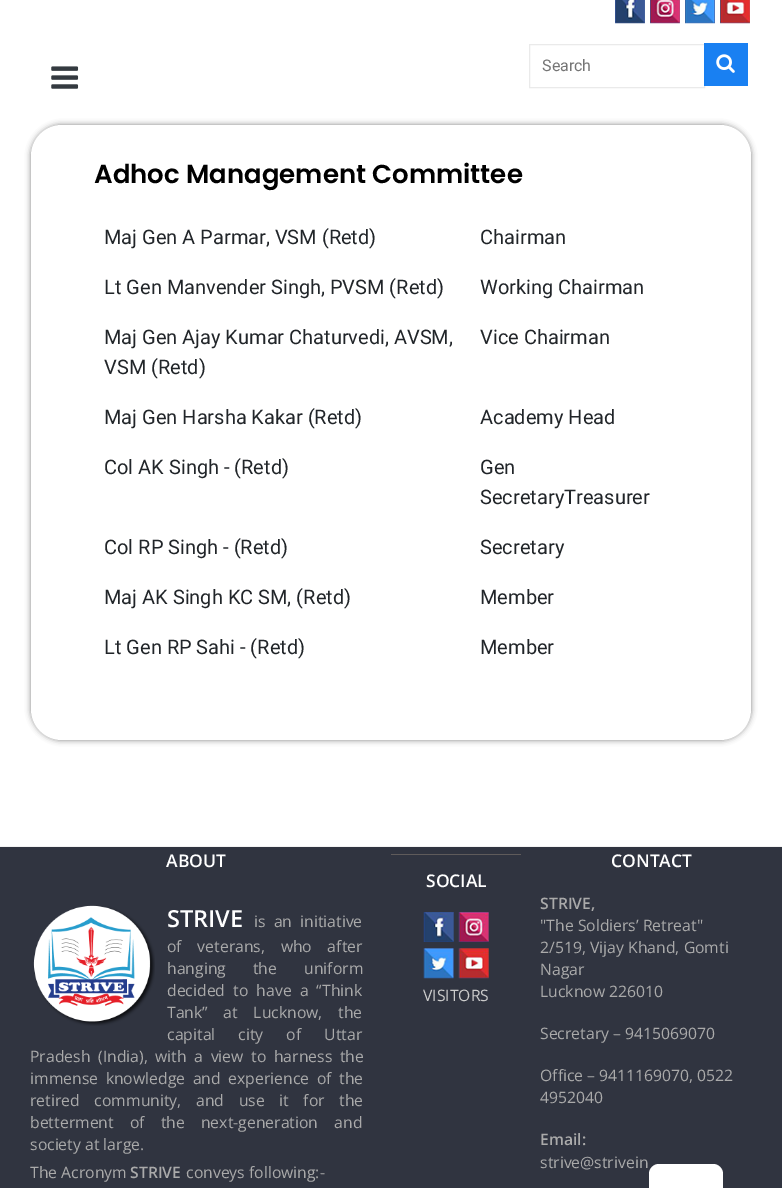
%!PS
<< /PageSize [782 1188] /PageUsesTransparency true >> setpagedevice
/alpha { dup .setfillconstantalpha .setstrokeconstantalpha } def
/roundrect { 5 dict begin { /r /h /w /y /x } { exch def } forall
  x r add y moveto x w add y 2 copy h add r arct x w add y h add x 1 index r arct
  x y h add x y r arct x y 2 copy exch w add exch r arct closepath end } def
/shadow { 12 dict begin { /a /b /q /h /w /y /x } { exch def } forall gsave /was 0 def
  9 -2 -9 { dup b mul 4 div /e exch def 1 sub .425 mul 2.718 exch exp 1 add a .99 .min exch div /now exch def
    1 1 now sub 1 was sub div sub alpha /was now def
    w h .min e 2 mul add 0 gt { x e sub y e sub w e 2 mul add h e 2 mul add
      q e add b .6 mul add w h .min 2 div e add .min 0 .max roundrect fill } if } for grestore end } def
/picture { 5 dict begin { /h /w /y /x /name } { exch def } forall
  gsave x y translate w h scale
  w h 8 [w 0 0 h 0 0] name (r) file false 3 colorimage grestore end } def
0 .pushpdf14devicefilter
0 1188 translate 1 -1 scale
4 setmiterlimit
1 setgray
0 0 782 1188 rectfill
(img1.rgb) 51 66 28 23 picture
(img2.rgb) 615 0 30 24 picture
(img3.rgb) 650 0 30 24 picture
(img4.rgb) 685 0 30 24 picture
(img5.rgb) 720 0 30 24 picture
0.918 setgray
529.5 44.5 175 43 rectstroke
/Roboto-Regular [16 0 0 -16 0 0] selectfont
0.459 setgray
542 71 moveto (Search) show
0.9 alpha
0 0.447 0.945 setrgbcolor
704 43 44 43 rectfill
1 alpha
(img6.rgb) 716 54 19 19 picture
0 setgray
31 125 720 615 31 3 0.5 shadow
1 setgray
31 125 720 615 31 roundrect fill
/Poppins-SemiBold [26 0 0 -26 0 0] selectfont
0 setgray
94 183 moveto (Adhoc Management Committee) show
/Roboto-Regular [20 0 0 -20 0 0] selectfont
0.129 0.145 0.161 setrgbcolor
104 244 moveto (Maj Gen A Parmar, VSM \(Retd\)) show
480 244 moveto (Chairman) show
104 294 moveto (Lt Gen Manvender Singh, PVSM \(Retd\)) show
480 294 moveto (Working Chairman) show
104 344 moveto (Maj Gen Ajay Kumar Chaturvedi, AVSM,) show
104 374 moveto (VSM \(Retd\)) show
480 344 moveto (Vice Chairman) show
104 424 moveto (Maj Gen Harsha Kakar \(Retd\)) show
480 424 moveto (Academy Head) show
104 474 moveto (Col AK Singh - \(Retd\)) show
480 474 moveto (Gen) show
480 504 moveto (SecretaryTreasurer) show
104 554 moveto (Col RP Singh - \(Retd\)) show
480 554 moveto (Secretary) show
104 604 moveto (Maj AK Singh KC SM, \(Retd\)) show
480 604 moveto (Member) show
104 654 moveto (Lt Gen RP Sahi - \(Retd\)) show
480 654 moveto (Member) show
0.188 0.204 0.251 setrgbcolor
0 847 782 341 rectfill
0.949 setgray
0 846 782 1 rectfill
/OpenSans-SemiBold [17.5 0 0 -17.5 0 0] selectfont
1 setgray
166 867 moveto (ABOUT) show
(img7.rgb) 33 905 122 121 picture
/OpenSans-SemiBold [23.5 0 0 -23.5 0 0] selectfont
167 927 moveto (STRIVE) show
/OpenSans-Regular [15.75 0 0 -15.75 0 0] selectfont
0.667 setgray
254 927 moveto 4 0 32 (is an initiative) widthshow
167 952 moveto 11.5 0 32 (of veterans, who after) widthshow
167 974 moveto 23 0 32 (hanging the uniform) widthshow
167 996 moveto 4 0 32 (decided to have a “Think) widthshow
167 1018 moveto 11.5 0 32 (Tank” at Lucknow, the) widthshow
167 1040 moveto 19 0 32 (capital city of Uttar) widthshow
30 1062 moveto 3.5 0 32 (Pradesh \(India\), with a view to harness the) widthshow
30 1084 moveto 3.5 0 32 (immense knowledge and experience of the) widthshow
30 1106 moveto 10.5 0 32 (retired community, and use it for the) widthshow
30 1128 moveto 12 0 32 (betterment of the next-generation and) widthshow
30 1150 moveto (society at large.) show
30 1178 moveto (The Acronym) show
/OpenSans-SemiBold [15.75 0 0 -15.75 0 0] selectfont
130 1178 moveto (STRIVE) show
/OpenSans-Regular [15.75 0 0 -15.75 0 0] selectfont
186 1178 moveto (conveys following:-) show
0.373 0.357 0.357 setrgbcolor
391 854 130 1 rectfill
/OpenSans-SemiBold [17.5 0 0 -17.5 0 0] selectfont
1 setgray
426 887 moveto (SOCIAL) show
(img8.rgb) 423 912 31 30 picture
(img9.rgb) 458 912 31 30 picture
(img10.rgb) 423 948 31 31 picture
(img11.rgb) 458 948 31 31 picture
/OpenSans-Regular [15.75 0 0 -15.75 0 0] selectfont
0.8 setgray
423 1001 moveto (VISITORS) show
/OpenSans-SemiBold [17.5 0 0 -17.5 0 0] selectfont
1 setgray
611 867 moveto (CONTACT) show
/OpenSans-SemiBold [15.75 0 0 -15.75 0 0] selectfont
0.667 setgray
540 909 moveto (STRIVE,) show
/OpenSans-Regular [15.75 0 0 -15.75 0 0] selectfont
540 931 moveto ("The Soldiers’ Retreat") show
540 953 moveto (2/519, Vijay Khand, Gomti) show
540 975 moveto (Nagar) show
540 997 moveto (Lucknow 226010) show
540 1039 moveto (Secretary – 9415069070) show
540 1081 moveto (Office – 9411169070, 0522) show
540 1103 moveto (4952040) show
/OpenSans-SemiBold [15.75 0 0 -15.75 0 0] selectfont
540 1145 moveto (Email:) show
/OpenSans-Regular [15.75 0 0 -15.75 0 0] selectfont
540 1168 moveto (strive@strivein) show
1 setgray
649 1164 74 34 10 roundrect fill
.poppdf14devicefilter showpage
